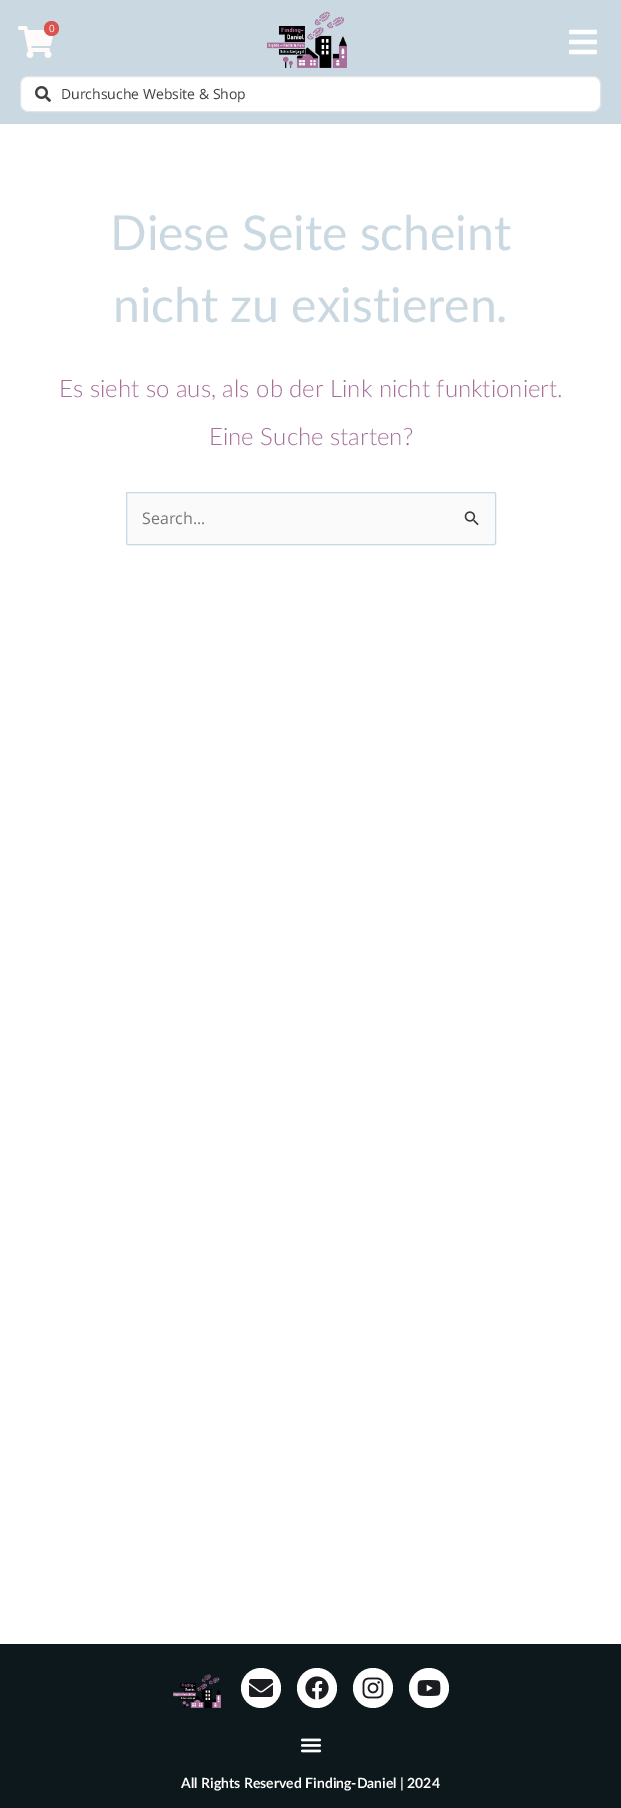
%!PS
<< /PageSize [621 1808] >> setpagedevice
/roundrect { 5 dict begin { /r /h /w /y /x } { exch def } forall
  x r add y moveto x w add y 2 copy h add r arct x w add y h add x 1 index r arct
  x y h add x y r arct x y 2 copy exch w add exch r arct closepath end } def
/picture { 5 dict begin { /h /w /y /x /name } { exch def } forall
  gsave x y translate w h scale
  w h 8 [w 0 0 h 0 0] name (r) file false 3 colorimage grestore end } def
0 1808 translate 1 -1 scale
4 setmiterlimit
1 setgray
0 0 621 1808 rectfill
0.788 0.847 0.882 setrgbcolor
0 0 621 124 rectfill
(img1.rgb) 18 26 36 32 picture
0.851 0.325 0.31 setrgbcolor
newpath 51.5 28.5 7.5 0 360 arc closepath fill
/OpenSans-Regular [10 0 0 -10 0 0] selectfont
1 setgray
49 32 moveto (0) show
(img2.rgb) 267 11 80 57 picture
(img3.rgb) 569 29 28 26 picture
20.5 76.5 580 35 7.5 roundrect gsave fill grestore
0.882 0.898 0.922 setrgbcolor
stroke
(img4.rgb) 35 86 16 16 picture
/OpenSans-Regular [14 0 0 -14 0 0] selectfont
0.247 setgray
61 99 moveto (Durchsuche Website & Shop) show
/Lato-Regular [48 0 0 -48 0 0] selectfont
0.788 0.847 0.882 setrgbcolor
110 250 moveto (Diese Seite scheint) show
113 322 moveto (nicht zu existieren.) show
/Lato-Light [24 0 0 -24 0 0] selectfont
0.655 0.431 0.604 setrgbcolor
59 397 moveto (Es sieht so aus, als ob der Link nicht funktioniert.) show
209 445 moveto (Eine Suche starten?) show
0.98 setgray
126.5 492.5 369 52 1.5 roundrect gsave fill grestore
0.788 0.847 0.882 setrgbcolor
stroke
/OpenSans-Regular [16 0 0 -16 0 0] selectfont
0.459 setgray
142 524 moveto (Search...) show
(img5.rgb) 464 511 15 15 picture
0.051 0.094 0.11 setrgbcolor
0 1644 621 164 rectfill
(img6.rgb) 173 1674 48 34 picture
1 setgray
newpath 261 1688 20 0 360 arc closepath fill
(img7.rgb) 249 1679 24 18 picture
newpath 317 1688 20 0 360 arc closepath fill
(img8.rgb) 305 1676 24 24 picture
newpath 373 1688 20 0 360 arc closepath fill
(img9.rgb) 362 1677 22 22 picture
newpath 429 1688 20 0 360 arc closepath fill
(img10.rgb) 417 1680 24 16 picture
(img11.rgb) 300 1738 22 15 picture
/Lato-Bold [14 0 0 -14 0 0] selectfont
181 1788 moveto (All Rights Reserved Finding-Daniel | 2024) show
showpage
